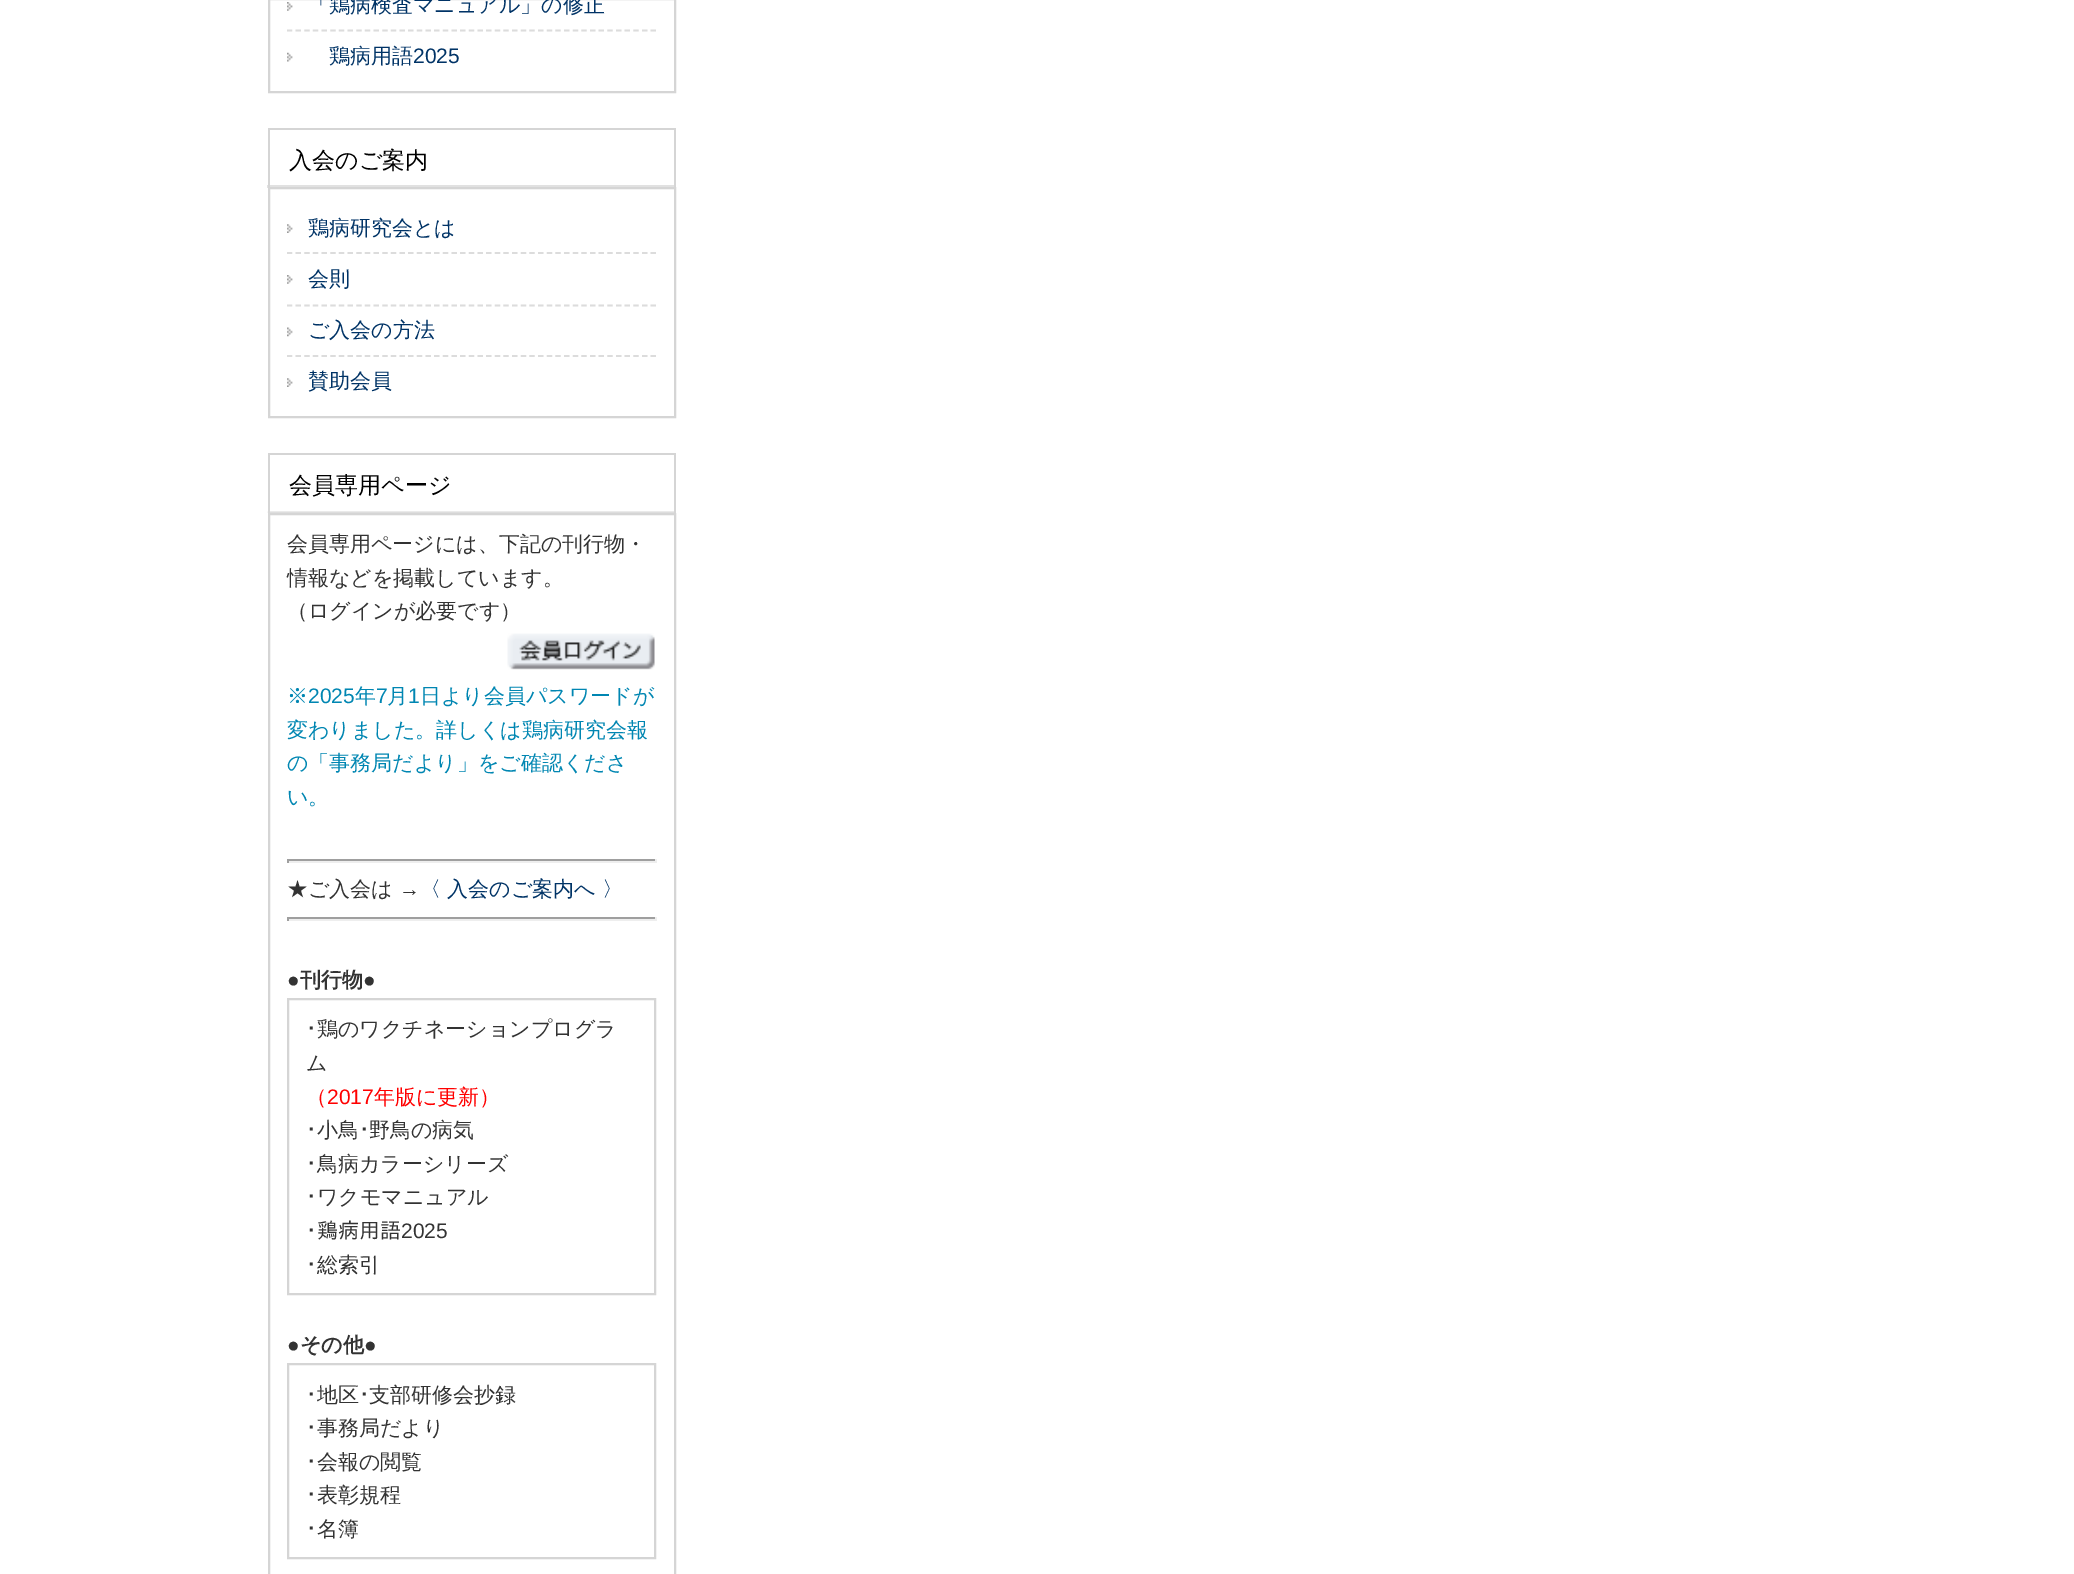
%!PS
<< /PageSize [2074 1574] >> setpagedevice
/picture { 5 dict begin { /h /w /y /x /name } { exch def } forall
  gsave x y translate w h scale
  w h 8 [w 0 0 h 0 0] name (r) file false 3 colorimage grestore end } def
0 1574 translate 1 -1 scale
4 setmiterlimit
1 setgray
0 0 2074 1574 rectfill
0.835 setgray
2 setlinewidth
269 -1 406 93 rectstroke
(img1.rgb) 287 2 6 9 picture
0.863 setgray
1.8 setlinewidth
[5.25 3.41] 0 setdash
newpath 287 30.5 moveto 656 30.5 lineto stroke
/WenQuanYiZenHei-Medium [21 0 0 -21 0 0] selectfont
0 0.2 0.4 setrgbcolor
308 12 moveto (「鶏病検査マニュアル」の修正) show
(img2.rgb) 287 52 6 10 picture
329 63 moveto (鶏病用語) show
/LiberationSans-Regular [21 0 0 -21 0 0] selectfont
413 63 moveto (2025) show
0.882 setgray
267 185 409 3 rectfill
0.835 setgray
268 128 408 2 rectfill
674 128 2 59 rectfill
268 128 2 59 rectfill
/WenQuanYiZenHei-Medium [23 0 0 -23 0 0] selectfont
0 setgray
289 168 moveto (入会のご案内) show
0.835 setgray
2 setlinewidth
[] 0 setdash
269 188 406 229 rectstroke
(img3.rgb) 287 224 6 9 picture
0.863 setgray
1.8 setlinewidth
[5.25 3.41] 0 setdash
newpath 287 253 moveto 656 253 lineto stroke
/WenQuanYiZenHei-Medium [21 0 0 -21 0 0] selectfont
0 0.2 0.4 setrgbcolor
308 235 moveto (鶏病研究会とは) show
(img1.rgb) 287 275 6 9 picture
0.863 setgray
newpath 287 305.5 moveto 656 305.5 lineto stroke
0 0.2 0.4 setrgbcolor
308 286 moveto (会則) show
(img4.rgb) 287 327 6 10 picture
0.863 setgray
newpath 287 356 moveto 656 356 lineto stroke
0 0.2 0.4 setrgbcolor
308 337 moveto (ご入会の方法) show
(img3.rgb) 287 378 6 9 picture
308 388 moveto (賛助会員) show
(img5.rgb) 267 511 407 2 picture
0.835 setgray
268 453 408 2 rectfill
674 453 2 60 rectfill
268 453 2 60 rectfill
/WenQuanYiZenHei-Medium [23 0 0 -23 0 0] selectfont
0 setgray
289 493 moveto (会員専用ページ) show
0.835 setgray
2 setlinewidth
[] 0 setdash
269 514 406 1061 rectstroke
/WenQuanYiZenHei-Medium [21 0 0 -21 0 0] selectfont
0.2 setgray
287 551 moveto (会員専用ページには、下記の刊行物・) show
287 585 moveto (情報などを掲載しています。) show
287 618 moveto (（ログインが必要です）) show
(img6.rgb) 507 633 148 37 picture
0 0.525 0.698 setrgbcolor
287 703 moveto (※) show
/LiberationSans-Regular [21 0 0 -21 0 0] selectfont
308 703 moveto (2025) show
/WenQuanYiZenHei-Medium [21 0 0 -21 0 0] selectfont
355 703 moveto (年) show
/LiberationSans-Regular [21 0 0 -21 0 0] selectfont
376 703 moveto (7) show
/WenQuanYiZenHei-Medium [21 0 0 -21 0 0] selectfont
387 703 moveto (月) show
/LiberationSans-Regular [21 0 0 -21 0 0] selectfont
408 703 moveto (1) show
/WenQuanYiZenHei-Medium [21 0 0 -21 0 0] selectfont
420 703 moveto (日より会員パスワードが) show
287 737 moveto (変わりました。詳しくは鶏病研究会報) show
287 770 moveto (の「事務局だより」をご確認くださ) show
287 804 moveto (い。) show
0.624 setgray
287 859 369 2 rectfill
0.933 setgray
655 859 2 4 rectfill
287 861 369 2 rectfill
0.624 setgray
287 859 2 4 rectfill
0.2 setgray
287 896 moveto (★ご入会は) show
/LiberationSans-Regular [21 0 0 -21 0 0] selectfont
399 896 moveto (→) show
/WenQuanYiZenHei-Medium [21 0 0 -21 0 0] selectfont
0 0.2 0.4 setrgbcolor
420 896 moveto (〈 入会のご案内へ 〉) show
0.624 setgray
287 917 369 2 rectfill
0.933 setgray
655 917 2 4 rectfill
287 919 369 2 rectfill
0.624 setgray
287 917 2 4 rectfill
/LiberationSans-Bold [21 0 0 -21 0 0] selectfont
0.2 setgray
287 987 moveto (●) show
/WenQuanYiZenHei-Bold [21 0 0 -21 0 0] selectfont
300 987 moveto (刊行物) show
/LiberationSans-Bold [21 0 0 -21 0 0] selectfont
363 987 moveto (●) show
0.835 setgray
288 999 367 295 rectstroke
/IPAPGothic-Regular [21 0 0 -21 0 0] selectfont
0.2 setgray
306 1036 moveto (･) show
/WenQuanYiZenHei-Medium [21 0 0 -21 0 0] selectfont
317 1036 moveto (鶏のワクチネーションプログラ) show
306 1070 moveto (ム) show
1 0 0 setrgbcolor
306 1104 moveto (（) show
/LiberationSans-Regular [21 0 0 -21 0 0] selectfont
327 1104 moveto (2017) show
/WenQuanYiZenHei-Medium [21 0 0 -21 0 0] selectfont
374 1104 moveto (年版に更新）) show
/IPAPGothic-Regular [21 0 0 -21 0 0] selectfont
0.2 setgray
306 1137 moveto (･) show
/WenQuanYiZenHei-Medium [21 0 0 -21 0 0] selectfont
317 1137 moveto (小鳥) show
/IPAPGothic-Regular [21 0 0 -21 0 0] selectfont
359 1137 moveto (･) show
/WenQuanYiZenHei-Medium [21 0 0 -21 0 0] selectfont
369 1137 moveto (野鳥の病気) show
/IPAPGothic-Regular [21 0 0 -21 0 0] selectfont
306 1171 moveto (･) show
/WenQuanYiZenHei-Medium [21 0 0 -21 0 0] selectfont
317 1171 moveto (鳥病カラーシリーズ) show
/IPAPGothic-Regular [21 0 0 -21 0 0] selectfont
306 1204 moveto (･) show
/WenQuanYiZenHei-Medium [21 0 0 -21 0 0] selectfont
317 1204 moveto (ワクモマニュアル) show
/IPAPGothic-Regular [21 0 0 -21 0 0] selectfont
306 1238 moveto (･鶏病用語) show
/LiberationSans-Regular [21 0 0 -21 0 0] selectfont
401 1238 moveto (2025) show
/IPAPGothic-Regular [21 0 0 -21 0 0] selectfont
306 1272 moveto (･) show
/WenQuanYiZenHei-Medium [21 0 0 -21 0 0] selectfont
317 1272 moveto (総索引) show
/LiberationSans-Bold [21 0 0 -21 0 0] selectfont
287 1352 moveto (●) show
/WenQuanYiZenHei-Bold [21 0 0 -21 0 0] selectfont
300 1352 moveto (その他) show
/LiberationSans-Bold [21 0 0 -21 0 0] selectfont
364 1352 moveto (●) show
0.835 setgray
288 1364 367 194 rectstroke
/IPAPGothic-Regular [21 0 0 -21 0 0] selectfont
0.2 setgray
306 1402 moveto (･) show
/WenQuanYiZenHei-Medium [21 0 0 -21 0 0] selectfont
317 1402 moveto (地区) show
/IPAPGothic-Regular [21 0 0 -21 0 0] selectfont
359 1402 moveto (･) show
/WenQuanYiZenHei-Medium [21 0 0 -21 0 0] selectfont
369 1402 moveto (支部研修会抄録) show
/IPAPGothic-Regular [21 0 0 -21 0 0] selectfont
306 1435 moveto (･) show
/WenQuanYiZenHei-Medium [21 0 0 -21 0 0] selectfont
317 1435 moveto (事務局だより) show
/IPAPGothic-Regular [21 0 0 -21 0 0] selectfont
306 1469 moveto (･) show
/WenQuanYiZenHei-Medium [21 0 0 -21 0 0] selectfont
317 1469 moveto (会報の閲覧) show
/IPAPGothic-Regular [21 0 0 -21 0 0] selectfont
306 1502 moveto (･) show
/WenQuanYiZenHei-Medium [21 0 0 -21 0 0] selectfont
317 1502 moveto (表彰規程) show
/IPAPGothic-Regular [21 0 0 -21 0 0] selectfont
306 1536 moveto (･) show
/WenQuanYiZenHei-Medium [21 0 0 -21 0 0] selectfont
317 1536 moveto (名簿) show
showpage
